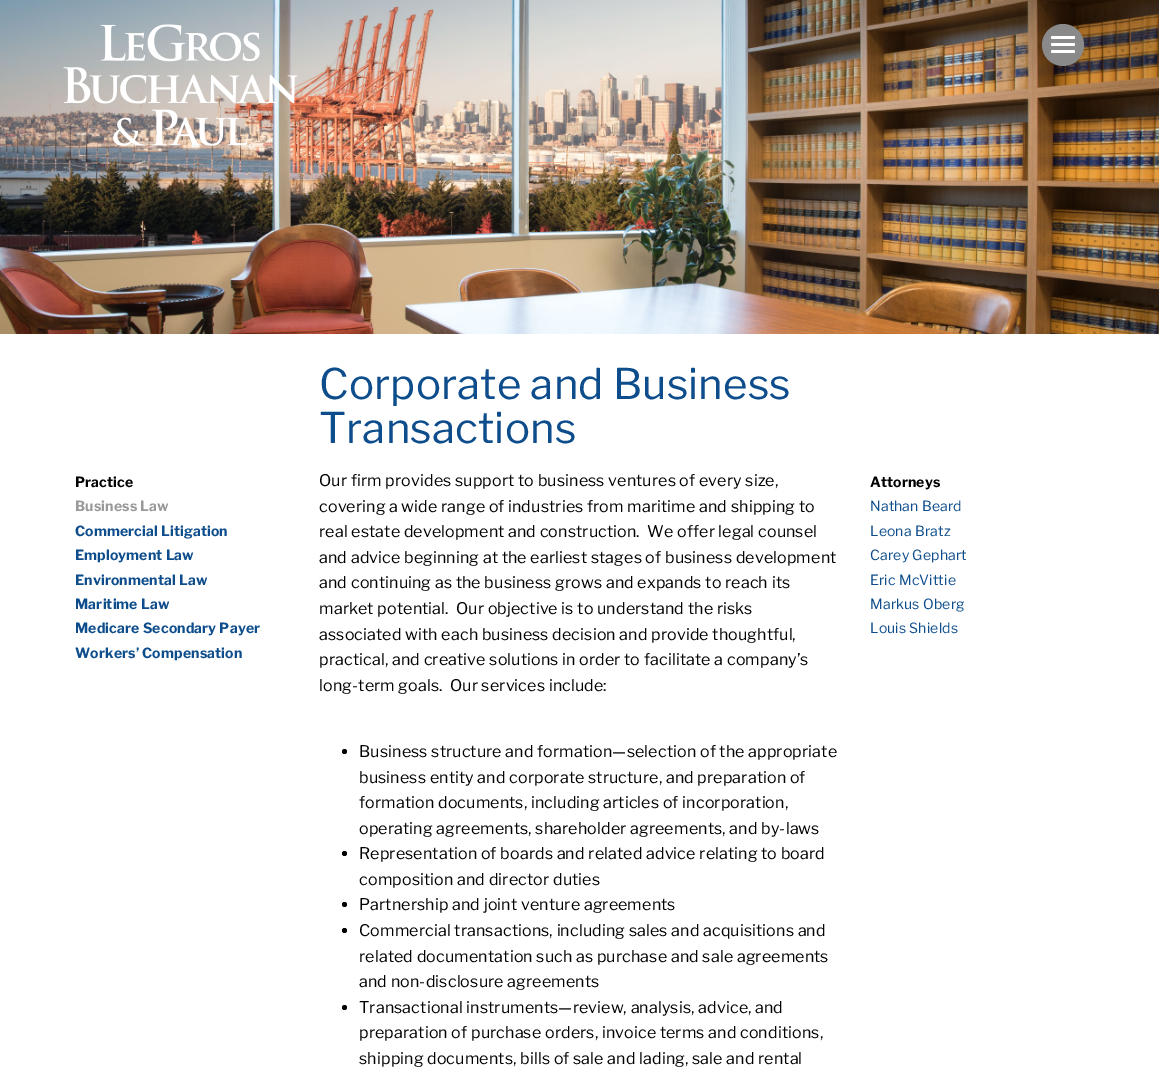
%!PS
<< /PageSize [1159 1079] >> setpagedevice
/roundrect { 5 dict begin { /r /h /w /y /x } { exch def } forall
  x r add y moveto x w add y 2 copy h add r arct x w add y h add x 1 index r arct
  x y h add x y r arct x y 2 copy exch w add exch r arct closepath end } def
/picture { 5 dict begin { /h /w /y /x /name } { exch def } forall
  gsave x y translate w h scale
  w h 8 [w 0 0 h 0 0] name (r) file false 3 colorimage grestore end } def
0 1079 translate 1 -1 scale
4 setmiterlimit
1 setgray
0 0 1159 1079 rectfill
(img1.rgb) 0 0 1159 334 picture
(img2.rgb) 63 24 235 122 picture
0.541 0.541 0.545 setrgbcolor
newpath 1063 45 21 0 360 arc closepath fill
1 setgray
1051 50 24 3 1.5 roundrect fill
1051 36 24 3 1.5 roundrect fill
1051 43 24 3 1.5 roundrect fill
/LibreFranklin-Regular [42 0 0 -42 0 0] selectfont
0.051 0.302 0.549 setrgbcolor
319 399 moveto 0.15 0 (Corporate and Business) ashow
319 443 moveto 0.15 0 (Transactions) ashow
/LibreFranklin-Bold [14 0 0 -14 0 0] selectfont
0 setgray
75 487 moveto 0.15 0 (Practice) ashow
0.6 setgray
75 511 moveto 0.15 0 (Business Law) ashow
0.051 0.302 0.549 setrgbcolor
75 536 moveto 0.15 0 (Commercial Litigation) ashow
75 560 moveto 0.15 0 (Employment Law) ashow
75 585 moveto 0.15 0 (Environmental Law) ashow
75 609 moveto 0.15 0 (Maritime Law) ashow
75 633 moveto 0.15 0 (Medicare Secondary Payer) ashow
75 658 moveto 0.15 0 (Workers’ Compensation) ashow
/LibreFranklin-Regular [16 0 0 -16 0 0] selectfont
0 setgray
319 486 moveto 0.15 0 (Our firm provides support to business ventures of every size,) ashow
319 512 moveto 0.15 0 (covering a wide range of industries from maritime and shipping to) ashow
319 537 moveto 0.15 0 (real estate development and construction.  We offer legal counsel) ashow
319 563 moveto 0.15 0 (and advice beginning at the earliest stages of business development) ashow
319 588 moveto 0.15 0 (and continuing as the business grows and expands to reach its) ashow
319 614 moveto 0.15 0 (market potential.  Our objective is to understand the risks) ashow
319 640 moveto 0.15 0 (associated with each business decision and provide thoughtful,) ashow
319 665 moveto 0.15 0 (practical, and creative solutions in order to facilitate a company’s) ashow
319 691 moveto 0.15 0 (long-term goals.  Our services include:) ashow
newpath 344.5 751.5 2.5 0 360 arc closepath fill
359 757 moveto 0.15 0 (Business structure and formation—selection of the appropriate) ashow
359 783 moveto 0.15 0 (business entity and corporate structure, and preparation of) ashow
359 808 moveto 0.15 0 (formation documents, including articles of incorporation,) ashow
359 834 moveto 0.15 0 (operating agreements, shareholder agreements, and by-laws) ashow
newpath 344.5 853.5 2.5 0 360 arc closepath fill
359 859 moveto 0.15 0 (Representation of boards and related advice relating to board) ashow
359 885 moveto 0.15 0 (composition and director duties) ashow
newpath 344.5 904.5 2.5 0 360 arc closepath fill
359 910 moveto 0.15 0 (Partnership and joint venture agreements) ashow
newpath 344.5 930.5 2.5 0 360 arc closepath fill
359 936 moveto 0.15 0 (Commercial transactions, including sales and acquisitions and) ashow
359 962 moveto 0.15 0 (related documentation such as purchase and sale agreements) ashow
359 987 moveto 0.15 0 (and non-disclosure agreements) ashow
newpath 344.5 1007.5 2.5 0 360 arc closepath fill
359 1013 moveto 0.15 0 (Transactional instruments—review, analysis, advice, and) ashow
359 1038 moveto 0.15 0 (preparation of purchase orders, invoice terms and conditions,) ashow
359 1064 moveto 0.15 0 (shipping documents, bills of sale and lading, sale and rental) ashow
/LibreFranklin-Bold [14 0 0 -14 0 0] selectfont
870 487 moveto 0.15 0 (Attorneys) ashow
/LibreFranklin-Regular [14 0 0 -14 0 0] selectfont
0.051 0.302 0.549 setrgbcolor
870 511 moveto 0.15 0 (Nathan Beard) ashow
870 536 moveto 0.15 0 (Leona Bratz) ashow
870 560 moveto 0.15 0 (Carey Gephart) ashow
870 585 moveto 0.15 0 (Eric McVittie) ashow
870 609 moveto 0.15 0 (Markus Oberg) ashow
870 633 moveto 0.15 0 (Louis Shields) ashow
showpage
